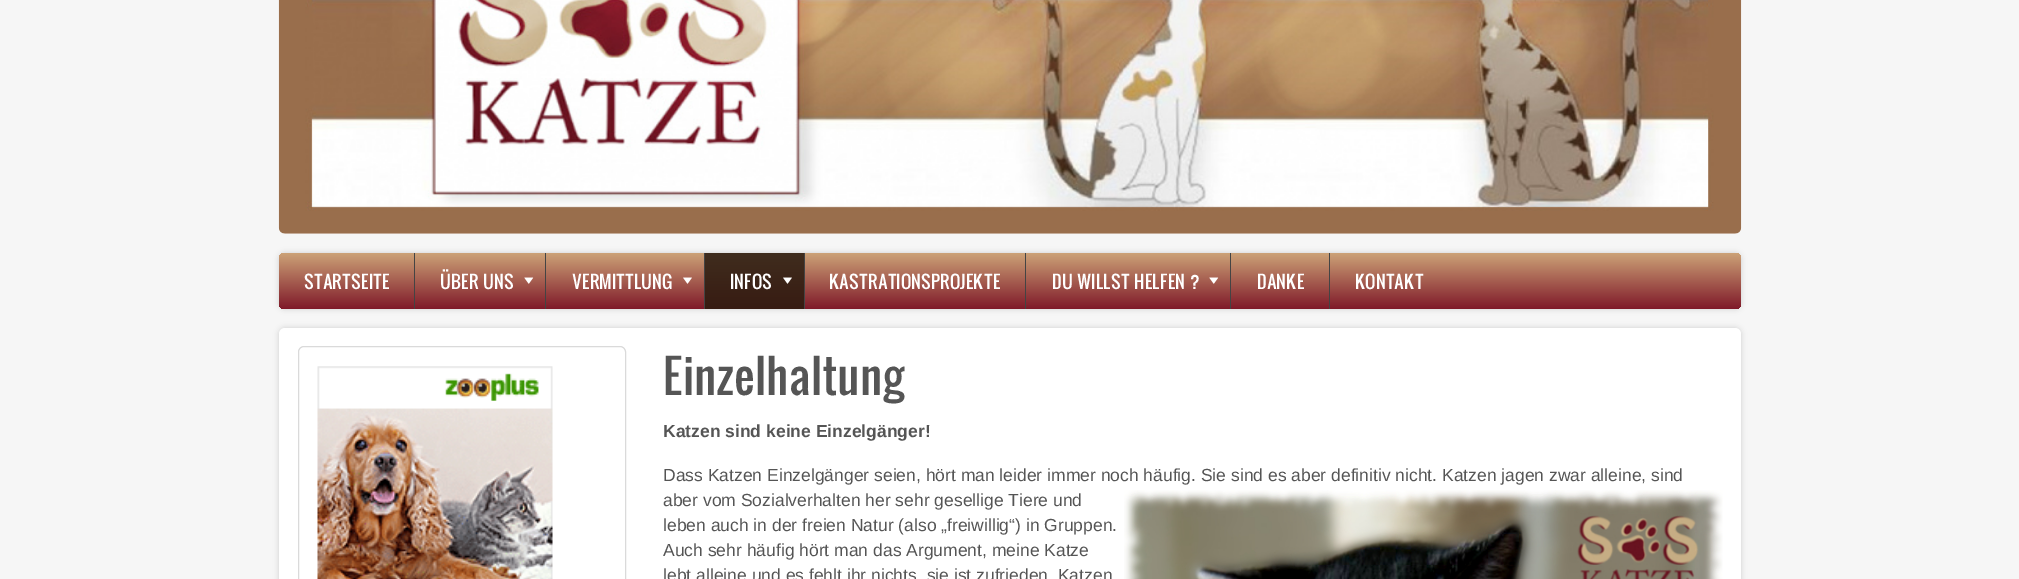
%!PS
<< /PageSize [2019 579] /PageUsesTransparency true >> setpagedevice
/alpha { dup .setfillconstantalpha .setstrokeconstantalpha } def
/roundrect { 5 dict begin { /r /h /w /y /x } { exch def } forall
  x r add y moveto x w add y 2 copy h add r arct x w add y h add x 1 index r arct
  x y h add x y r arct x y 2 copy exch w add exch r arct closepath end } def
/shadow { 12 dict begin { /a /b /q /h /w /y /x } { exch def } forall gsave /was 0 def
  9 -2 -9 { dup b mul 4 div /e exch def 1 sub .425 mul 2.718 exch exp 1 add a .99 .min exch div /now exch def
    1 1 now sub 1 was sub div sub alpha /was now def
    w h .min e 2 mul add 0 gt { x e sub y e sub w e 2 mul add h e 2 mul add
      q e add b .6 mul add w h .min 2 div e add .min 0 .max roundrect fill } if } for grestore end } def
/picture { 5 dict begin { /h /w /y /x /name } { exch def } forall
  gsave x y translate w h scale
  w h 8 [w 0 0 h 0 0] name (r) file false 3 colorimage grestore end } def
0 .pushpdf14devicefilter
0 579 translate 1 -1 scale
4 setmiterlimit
0.965 setgray
0 0 2019 579 rectfill
1 setgray
279 -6 1462 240 6 roundrect fill
(img1.rgb) 278 0 1464 234 picture
0.8 setgray
279 253 1462 56 6 3 1 shadow
gsave 279 253 1462 56 6 roundrect clip newpath
<< /ShadingType 2 /ColorSpace /DeviceRGB /Coords [1010 252 1010 309] /Extend [true true] /Function << /FunctionType 2 /Domain [0 1] /C0 [0.804 0.643 0.471] /C1 [0.498 0.098 0.161] /N 1 >> >> shfill grestore
/Oswald-Regular [17.5 0 0 -17.5 0 0] selectfont
1 setgray
304 289 moveto (STARTSEITE) show
0.267 setgray
414 253 1 56 rectfill
1 setgray
440 289 moveto (ÜBER UNS) show
(img2.rgb) 524 277 10 7 picture
0.267 setgray
545 253 1 56 rectfill
1 setgray
572 289 moveto (VERMITTLUNG) show
(img3.rgb) 683 277 9 7 picture
0.267 setgray
704 253 1 56 rectfill
gsave newpath 705 253 moveto 804 253 lineto 804 309 lineto 705 309 lineto closepath clip newpath
<< /ShadingType 2 /ColorSpace /DeviceRGB /Coords [754 253 754 309] /Extend [true true] /Function << /FunctionType 2 /Domain [0 1] /C0 [0.251 0.176 0.118] /C1 [0.216 0.106 0.071] /N 1 >> >> shfill grestore
1 setgray
730 289 moveto (INFOS) show
(img4.rgb) 783 277 9 7 picture
0.267 setgray
804 253 1 56 rectfill
1 setgray
829 289 moveto (KASTRATIONSPROJEKTE) show
0.267 setgray
1025 253 1 56 rectfill
1 setgray
1052 289 moveto (DU WILLST HELFEN ?) show
(img2.rgb) 1209 277 10 7 picture
0.267 setgray
1230 253 1 56 rectfill
1 setgray
1257 289 moveto (DANKE) show
0.267 setgray
1329 253 1 56 rectfill
1 setgray
1355 289 moveto (KONTAKT) show
0.8 setgray
279 328 1462 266 6 3 1 shadow
1 setgray
279 328 1462 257 6 roundrect fill
0.855 setgray
298.5 346.5 327 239 5.5 roundrect stroke
(img5.rgb) 317 366 236 213 picture
/Oswald-Regular [45 0 0 -45 0 0] selectfont
0.333 setgray
663 395 moveto (Einzelhaltung) show
/LiberationSans-Bold [17.5 0 0 -17.5 0 0] selectfont
663 437 moveto (Katzen sind keine Einzelgänger!) show
/LiberationSans-Regular [17.5 0 0 -17.5 0 0] selectfont
663 481 moveto (Dass Katzen Einzelgänger seien, hört man leider immer noch häufig. Sie sind es aber definitiv nicht. Katzen jagen zwar alleine, sind) show
663 506 moveto (aber vom Sozialverhalten her sehr gesellige Tiere und) show
(img6.rgb) 1124 490 599 89 picture
663 531 moveto (leben auch in der freien Natur \(also „freiwillig“\) in Gruppen.) show
663 556 moveto (Auch sehr häufig hört man das Argument, meine Katze) show
663 581 moveto (lebt alleine und es fehlt ihr nichts, sie ist zufrieden. Katzen) show
.poppdf14devicefilter showpage
